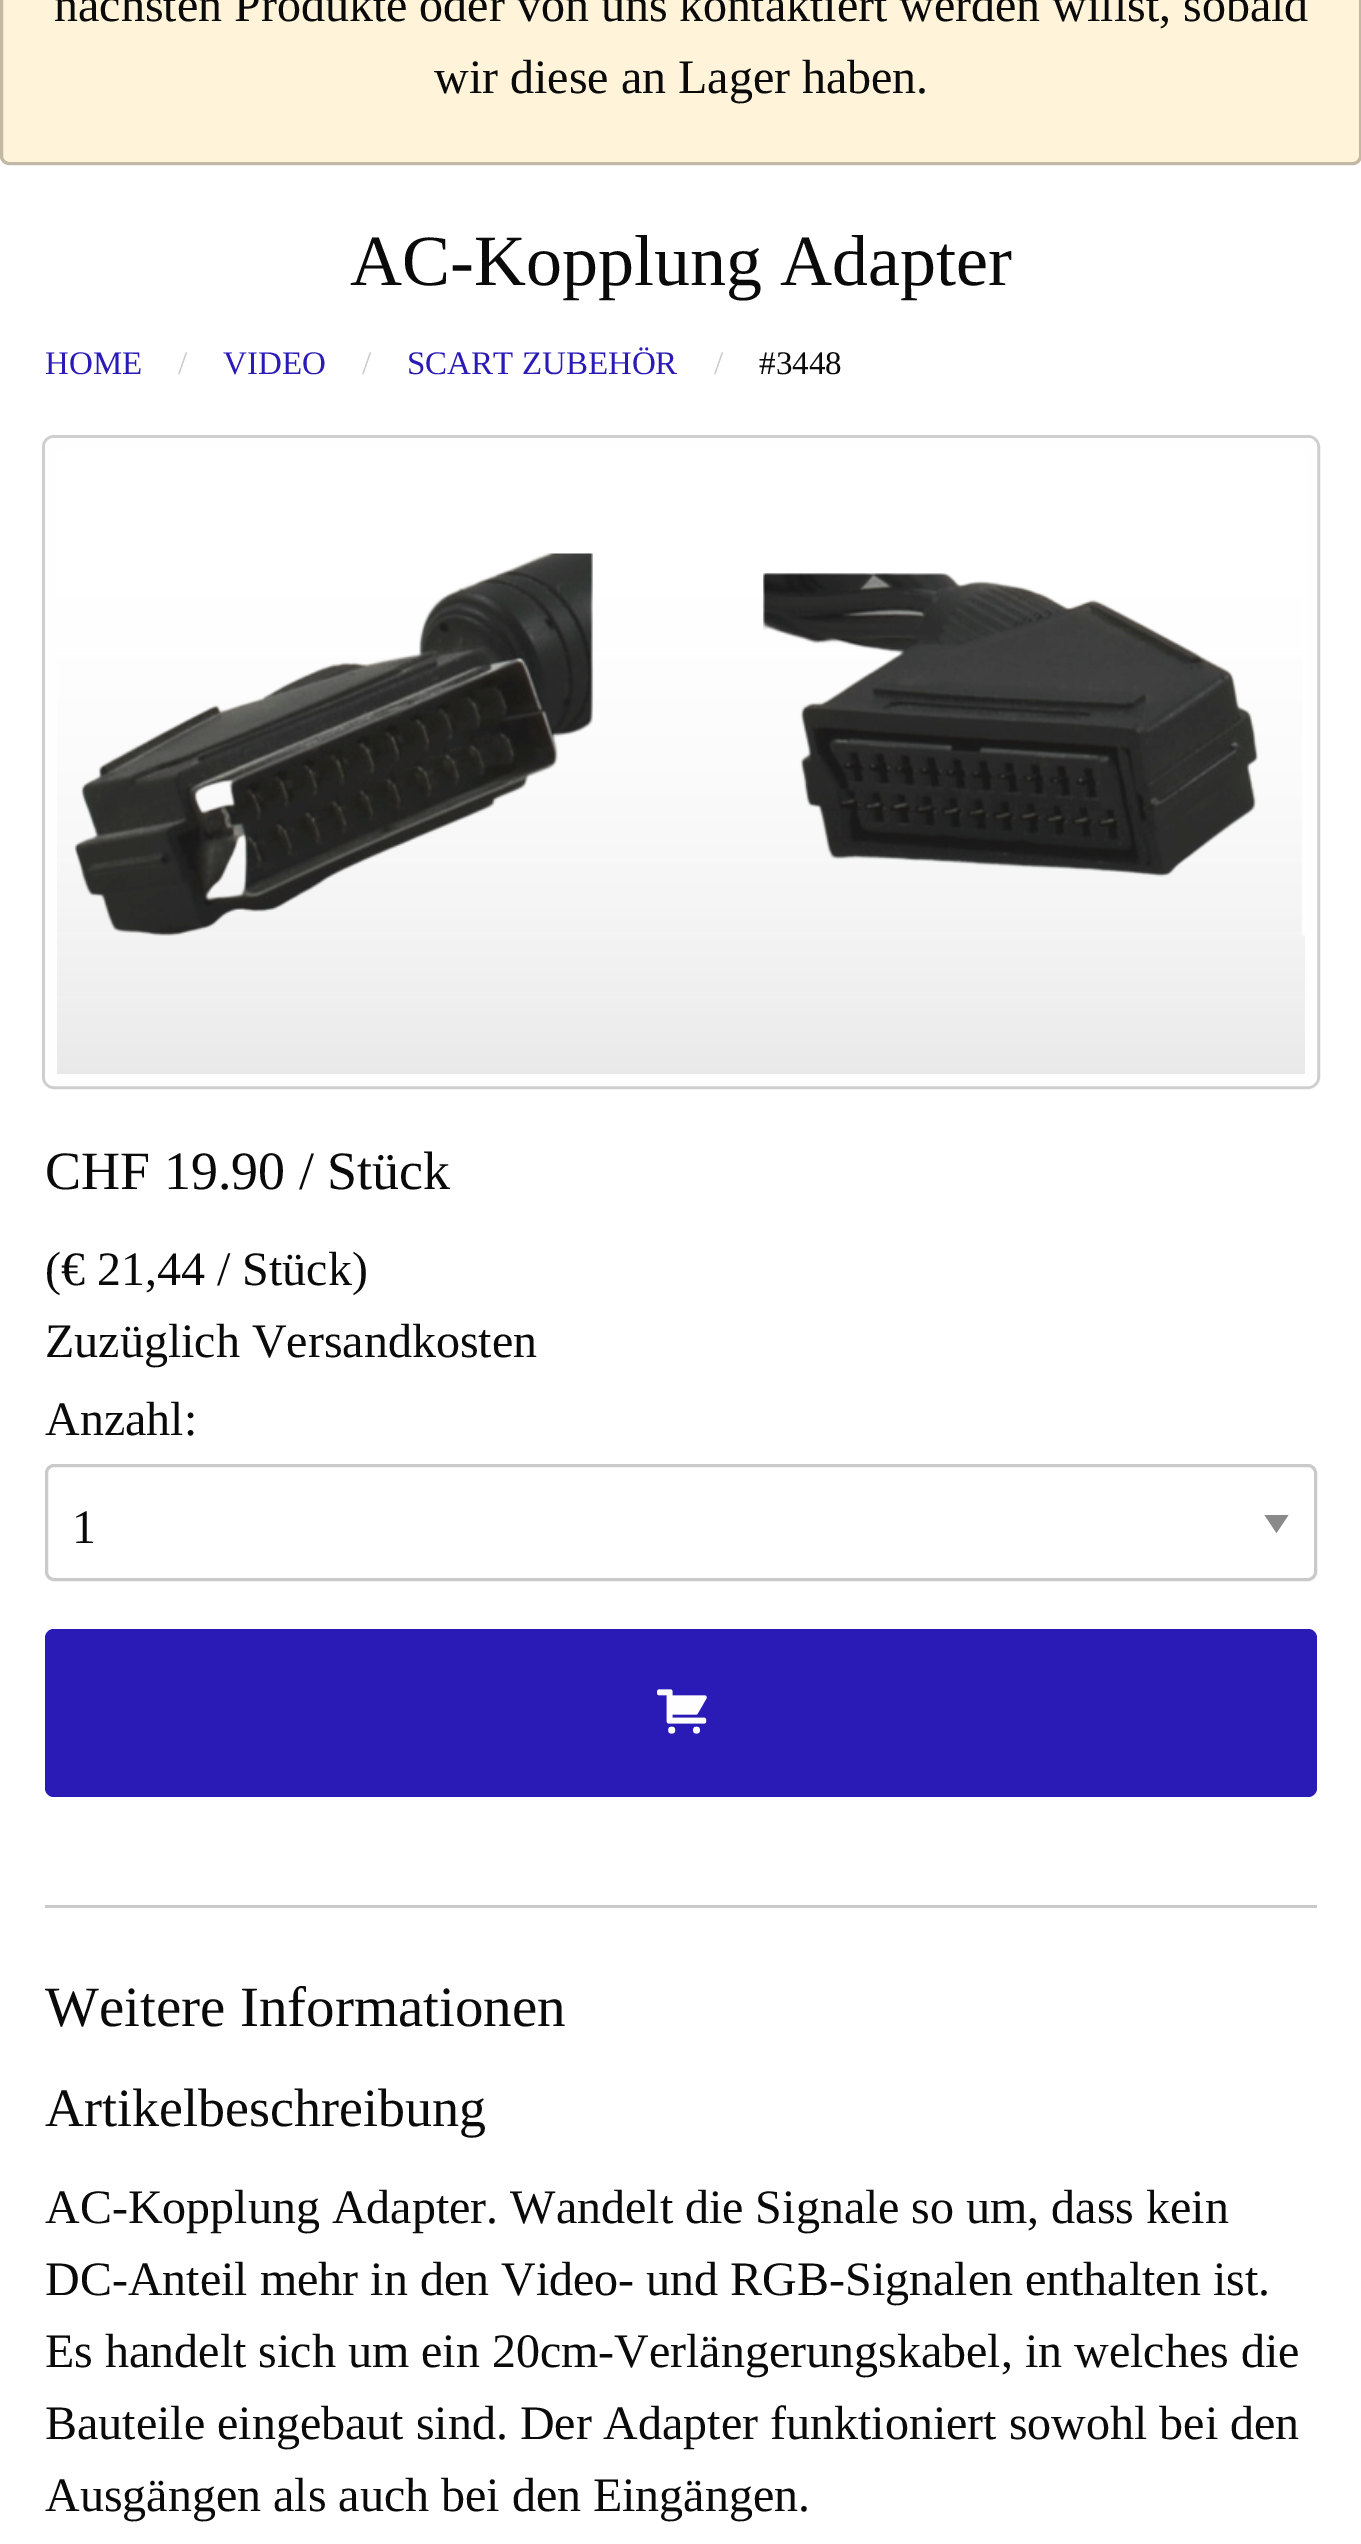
%!PS
<< /PageSize [1361 2544] /PageUsesTransparency true >> setpagedevice
/alpha { dup .setfillconstantalpha .setstrokeconstantalpha } def
/roundrect { 5 dict begin { /r /h /w /y /x } { exch def } forall
  x r add y moveto x w add y 2 copy h add r arct x w add y h add x 1 index r arct
  x y h add x y r arct x y 2 copy exch w add exch r arct closepath end } def
/picture { 5 dict begin { /h /w /y /x /name } { exch def } forall
  gsave x y translate w h scale
  w h 8 [w 0 0 h 0 0] name (r) file false 3 colorimage grestore end } def
0 .pushpdf14devicefilter
0 2544 translate 1 -1 scale
4 setmiterlimit
1 setgray
0 0 1361 2544 rectfill
1 0.953 0.851 setrgbcolor
0 -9 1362 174 9 roundrect fill
0.25 alpha
0.039 setgray
3 setlinewidth
1.5 -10.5 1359 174 7.5 roundrect stroke
/LiberationSerif-Regular [48 0 0 -48 0 0] selectfont
1 alpha
54 21 moveto (nächsten Produkte oder von uns kontaktiert werden willst, sobald) show
434 93 moveto (wir diese an Lager haben.) show
/LiberationSerif-Regular [72 0 0 -72 0 0] selectfont
350 285 moveto (AC-Kopplung Adapter) show
/LiberationSerif-Regular [33 0 0 -33 0 0] selectfont
0.165 0.106 0.718 setrgbcolor
45 374 moveto (HOME) show
0.792 setgray
178 374 moveto (/) show
0.165 0.106 0.718 setrgbcolor
223 374 moveto (VIDEO) show
0.792 setgray
362 374 moveto (/) show
0.165 0.106 0.718 setrgbcolor
407 374 moveto (SCART ZUBEHÖR) show
0.792 setgray
714 374 moveto (/) show
0.039 setgray
759 374 moveto (#3448) show
0.808 setgray
43.5 436.5 1275 651 10.5 roundrect stroke
0.996 setgray
12 setlinewidth
51 444 1260 636 3 roundrect stroke
(img1.rgb) 57 553 1248 521 picture
/LiberationSerif-Regular [54 0 0 -54 0 0] selectfont
0.039 setgray
45 1189 moveto (CHF 19.90 / Stück) show
/LiberationSerif-Regular [48 0 0 -48 0 0] selectfont
45 1285 moveto (\(€ 21,44 / Stück\)) show
45 1357 moveto (Zuzüglich Versandkosten) show
45 1435 moveto (Anzahl:) show
0.541 setgray
newpath 1264.5 1515 moveto 1288.5 1515 lineto 1276.5 1533 lineto closepath fill
0.792 setgray
3 setlinewidth
46.5 1465.5 1269 114 7.5 roundrect stroke
0.039 setgray
72 1543 moveto (1) show
0.165 0.106 0.718 setrgbcolor
45 1629 1272 168 9 roundrect fill
(img2.rgb) 657 1689 50 45 picture
0.792 setgray
45 1905 1272 3 rectfill
/LiberationSerif-Regular [57 0 0 -57 0 0] selectfont
0.039 setgray
45 2026 moveto (Weitere Informationen) show
/LiberationSerif-Regular [54 0 0 -54 0 0] selectfont
45 2126 moveto (Artikelbeschreibung) show
/LiberationSerif-Regular [48 0 0 -48 0 0] selectfont
45 2223 moveto (AC-Kopplung Adapter. Wandelt die Signale so um, dass kein) show
45 2295 moveto (DC-Anteil mehr in den Video- und RGB-Signalen enthalten ist.) show
45 2367 moveto (Es handelt sich um ein 20cm-Verlängerungskabel, in welches die) show
45 2439 moveto (Bauteile eingebaut sind. Der Adapter funktioniert sowohl bei den) show
45 2511 moveto (Ausgängen als auch bei den Eingängen.) show
.poppdf14devicefilter showpage
